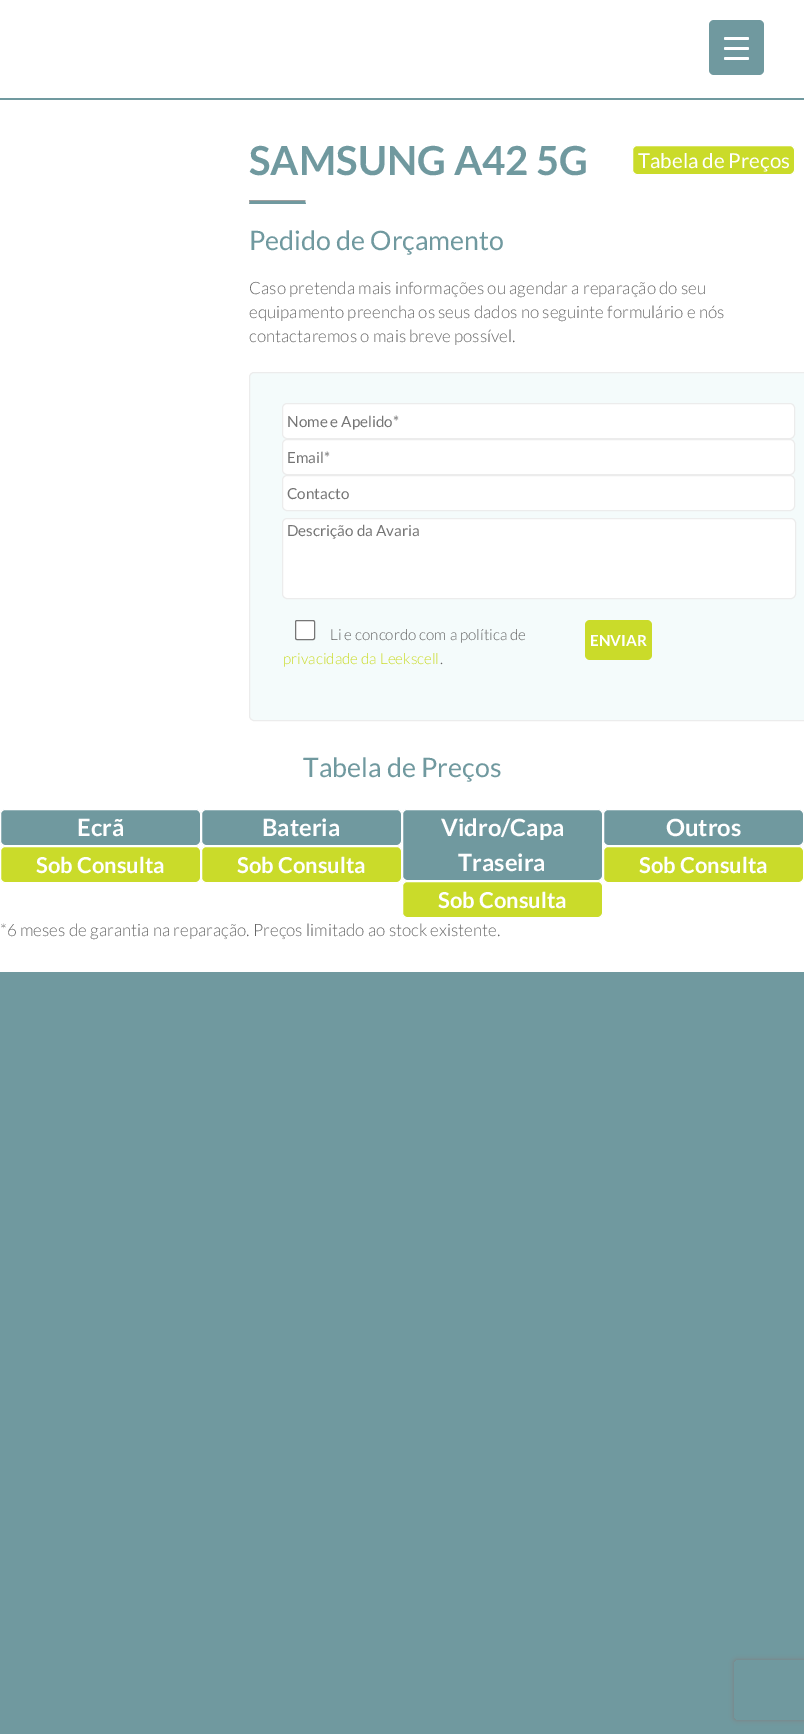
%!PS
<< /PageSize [804 1734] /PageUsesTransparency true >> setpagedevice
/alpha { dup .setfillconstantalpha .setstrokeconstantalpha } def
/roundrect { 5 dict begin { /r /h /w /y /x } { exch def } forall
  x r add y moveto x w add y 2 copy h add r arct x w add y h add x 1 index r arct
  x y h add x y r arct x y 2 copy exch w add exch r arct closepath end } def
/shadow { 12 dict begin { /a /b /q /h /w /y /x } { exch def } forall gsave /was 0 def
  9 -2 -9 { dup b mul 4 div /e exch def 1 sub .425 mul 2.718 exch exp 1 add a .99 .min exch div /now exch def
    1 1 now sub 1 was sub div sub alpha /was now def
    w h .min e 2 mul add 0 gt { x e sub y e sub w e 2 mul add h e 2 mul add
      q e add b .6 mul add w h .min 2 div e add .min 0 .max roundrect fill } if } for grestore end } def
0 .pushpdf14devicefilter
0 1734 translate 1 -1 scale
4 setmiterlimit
1 setgray
0 0 804 1734 rectfill
0.439 0.6 0.624 setrgbcolor
709 20 55 55 5 roundrect fill
1 setgray
724 47 25 3 1.5 roundrect fill
724 37 25 3 1.5 roundrect fill
724 57 25 3 1.5 roundrect fill
0.439 0.6 0.624 setrgbcolor
0 98 804 2 rectfill
/Lato-Bold [40 0 0 -40 0 0] selectfont
249 175 moveto (SAMSUNG A42 5G) show
0.792 0.859 0.165 setrgbcolor
632.5 145.5 162 29 4.5 roundrect gsave fill grestore
1 setgray
stroke
/Lato-Regular [20.5 0 0 -20.5 0 0] selectfont
638 168 moveto (Tabela de Preços) show
0.624 setgray
249 200 57 1 rectfill
0.933 setgray
newpath 306 200 moveto 306 204 lineto 305 201 lineto closepath fill
0.439 0.6 0.624 setrgbcolor
newpath 306 204 moveto 249 204 lineto 250 201 lineto 305 201 lineto closepath fill
0.624 setgray
newpath 249 204 moveto 249 200 lineto 250 201 lineto closepath fill
/Lato-Regular [26.75 0 0 -26.75 0 0] selectfont
0.439 0.6 0.624 setrgbcolor
249 250 moveto (Pedido de Orçamento) show
/Lato-Light [17 0 0 -17 0 0] selectfont
0.4 setgray
249 294 moveto (Caso pretenda mais informações ou agendar a reparação do seu) show
249 318 moveto (equipamento preencha os seus dados no seguinte formulário e nós) show
249 342 moveto (contactaremos o mais breve possível.) show
0.957 0.984 0.984 setrgbcolor
249.5 372.5 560 348 4.5 roundrect gsave fill grestore
0.925 setgray
stroke
1 setgray
282.5 403.5 512 35 4.5 roundrect gsave fill grestore
0.925 setgray
stroke
/Lato-Regular [15.25 0 0 -15.25 0 0] selectfont
0.459 setgray
287 427 moveto (Nome e Apelido*) show
1 setgray
282.5 439.5 512 35 4.5 roundrect gsave fill grestore
0.925 setgray
stroke
0.459 setgray
287 463 moveto (Email*) show
1 setgray
282.5 475.5 512 35 4.5 roundrect gsave fill grestore
0.925 setgray
stroke
0.459 setgray
287 499 moveto (Contacto) show
1 setgray
282.5 518.5 513 80 4.5 roundrect gsave fill grestore
0.925 setgray
stroke
0.459 setgray
287 536 moveto (Descrição da Avaria) show
1 setgray
295.5 620.5 19 19 1.5 roundrect gsave fill grestore
0.463 setgray
stroke
/Lato-Light [15.25 0 0 -15.25 0 0] selectfont
0.4 setgray
330 640 moveto (Li e concordo com a política de) show
0.792 0.859 0.165 setrgbcolor
283 664 moveto (privacidade da Leekscell) show
0.4 setgray
440 664 moveto (.) show
0.792 0.859 0.165 setrgbcolor
585 620 67 40 5 roundrect fill
/Lato-Bold [15.25 0 0 -15.25 0 0] selectfont
1 setgray
590 646 moveto (ENVIAR) show
/Lato-Regular [26.75 0 0 -26.75 0 0] selectfont
0.439 0.6 0.624 setrgbcolor
303 777 moveto (Tabela de Preços) show
0.5 809.5 200 36 4.5 roundrect gsave fill grestore
1 setgray
stroke
/Lato-Bold [23.75 0 0 -23.75 0 0] selectfont
77 836 moveto (Ecrã) show
0.792 0.859 0.165 setrgbcolor
0.5 846.5 200 36 4.5 roundrect gsave fill grestore
1 setgray
stroke
/Lato-Bold [22 0 0 -22 0 0] selectfont
36 873 moveto (Sob Consulta) show
0.439 0.6 0.624 setrgbcolor
201.5 809.5 200 36 4.5 roundrect gsave fill grestore
1 setgray
stroke
/Lato-Bold [23.75 0 0 -23.75 0 0] selectfont
262 836 moveto (Bateria) show
0.792 0.859 0.165 setrgbcolor
201.5 846.5 200 36 4.5 roundrect gsave fill grestore
1 setgray
stroke
/Lato-Bold [22 0 0 -22 0 0] selectfont
237 873 moveto (Sob Consulta) show
0.439 0.6 0.624 setrgbcolor
402.5 809.5 200 71 4.5 roundrect gsave fill grestore
1 setgray
stroke
/Lato-Bold [23.75 0 0 -23.75 0 0] selectfont
441 836 moveto (Vidro/Capa) show
458 871 moveto (Traseira) show
0.792 0.859 0.165 setrgbcolor
402.5 881.5 200 36 4.5 roundrect gsave fill grestore
1 setgray
stroke
/Lato-Bold [22 0 0 -22 0 0] selectfont
438 908 moveto (Sob Consulta) show
0.439 0.6 0.624 setrgbcolor
603.5 809.5 200 36 4.5 roundrect gsave fill grestore
1 setgray
stroke
/Lato-Bold [23.75 0 0 -23.75 0 0] selectfont
666 836 moveto (Outros) show
0.792 0.859 0.165 setrgbcolor
603.5 846.5 200 36 4.5 roundrect gsave fill grestore
1 setgray
stroke
/Lato-Bold [22 0 0 -22 0 0] selectfont
639 873 moveto (Sob Consulta) show
/Lato-Light [17 0 0 -17 0 0] selectfont
0.4 setgray
0 936 moveto (*6 meses de garantia na reparação. Preços limitado ao stock existente.) show
0.439 0.6 0.624 setrgbcolor
0 972 804 762 rectfill
gsave
newpath 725 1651 moveto 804 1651 lineto 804 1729 lineto 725 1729 lineto closepath 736 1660 moveto 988 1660 lineto 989 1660 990 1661 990 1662 curveto 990 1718 lineto 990 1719 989 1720 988 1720 curveto 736 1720 lineto 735 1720 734 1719 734 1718 curveto 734 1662 lineto 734 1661 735 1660 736 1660 curveto closepath eoclip newpath
0.502 setgray
734 1660 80 60 2 2.5 1 shadow
grestore
.poppdf14devicefilter showpage
